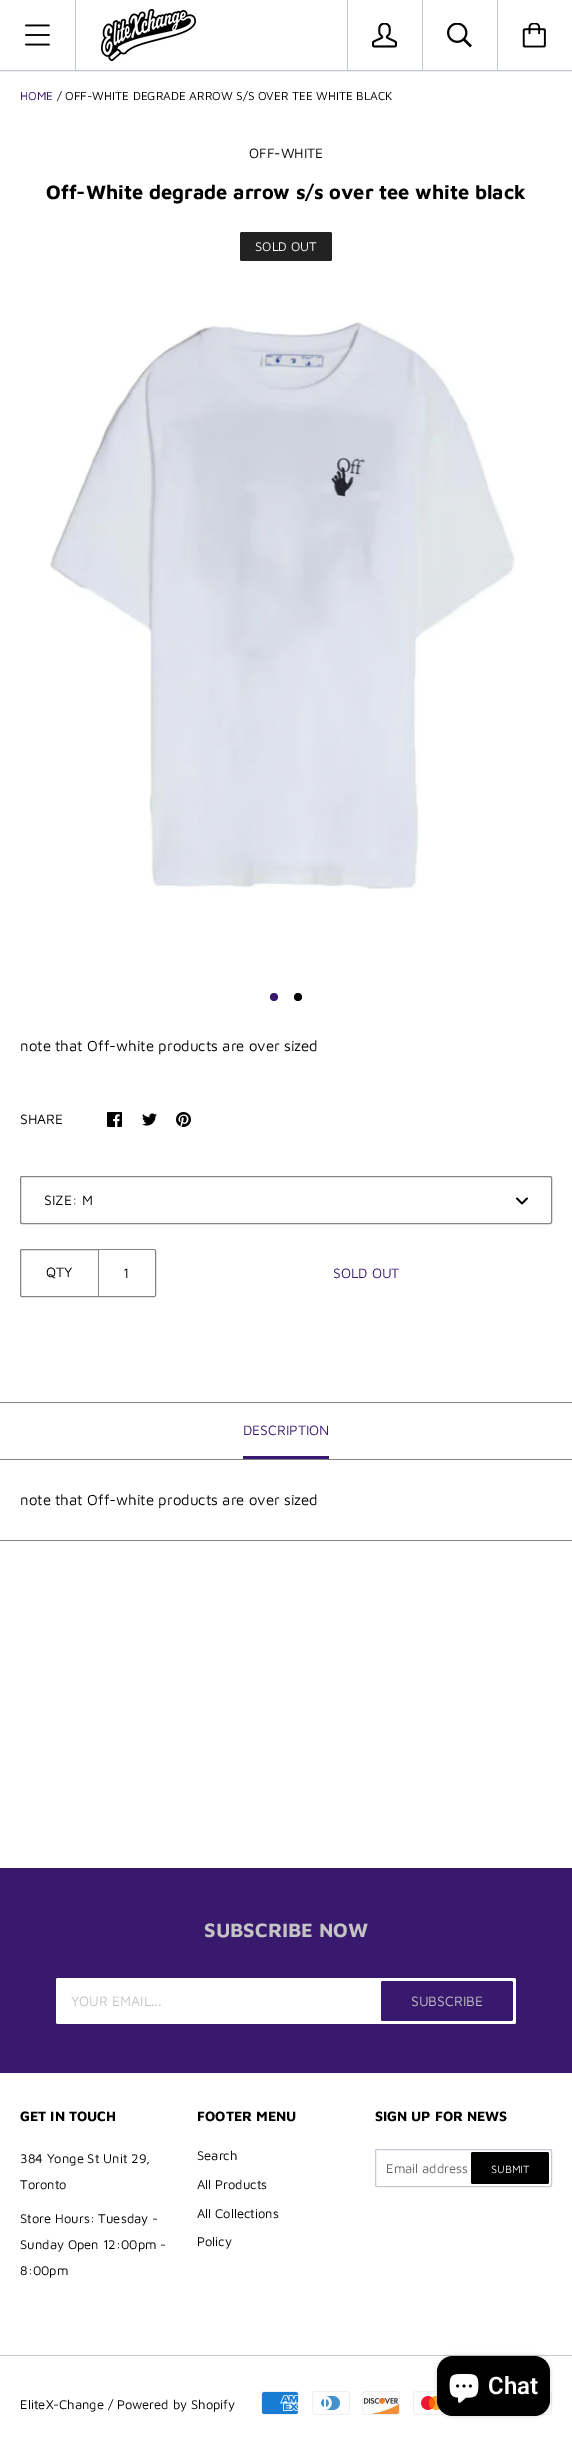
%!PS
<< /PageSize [572 2437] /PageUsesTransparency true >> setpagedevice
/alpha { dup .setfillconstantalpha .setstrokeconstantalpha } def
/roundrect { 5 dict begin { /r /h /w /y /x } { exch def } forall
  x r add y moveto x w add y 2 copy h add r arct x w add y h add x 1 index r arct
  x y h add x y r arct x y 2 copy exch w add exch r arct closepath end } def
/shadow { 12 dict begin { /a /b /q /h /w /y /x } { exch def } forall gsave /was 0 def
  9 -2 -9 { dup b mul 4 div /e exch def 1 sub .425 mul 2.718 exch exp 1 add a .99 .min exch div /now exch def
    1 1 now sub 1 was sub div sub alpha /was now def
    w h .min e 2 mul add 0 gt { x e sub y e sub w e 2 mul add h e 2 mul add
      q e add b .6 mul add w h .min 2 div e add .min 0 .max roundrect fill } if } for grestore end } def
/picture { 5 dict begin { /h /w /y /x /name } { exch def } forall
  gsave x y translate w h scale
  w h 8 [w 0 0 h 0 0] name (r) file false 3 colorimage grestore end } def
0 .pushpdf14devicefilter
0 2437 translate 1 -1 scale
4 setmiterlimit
1 setgray
0 0 572 2437 rectfill
0.929 0.937 0.949 setrgbcolor
0 71 572 1 rectfill
0.765 0.792 0.831 setrgbcolor
0 70 572 1 rectfill
(img1.rgb) 25 24 25 22 picture
75 0 1 70 rectfill
(img2.rgb) 101 9 95 52 picture
347 0 1 70 rectfill
(img3.rgb) 372 23 25 25 picture
422 0 1 70 rectfill
(img4.rgb) 447 23 25 25 picture
497 0 1 70 rectfill
(img5.rgb) 522 23 24 25 picture
/MavenPro-Regular [12 0 0 -12 0 0] selectfont
0.22 0.098 0.431 setrgbcolor
20 100 moveto (HOME) show
0 setgray
57 100 moveto (/ OFF-WHITE DEGRADE ARROW S/S OVER TEE WHITE BLACK) show
/MavenPro-Regular [14 0 0 -14 0 0] selectfont
249 158 moveto (OFF-WHITE) show
/MavenPro-Bold [20 0 0 -20 0 0] selectfont
46 199 moveto (Off-White degrade arrow s/s over tee white black) show
0.133 setgray
240 232 92 29 2 roundrect fill
/MavenPro-Regular [13 0 0 -13 0 0] selectfont
1 setgray
255 251 moveto (SOLD OUT) show
(img6.rgb) 50 322 466 567 picture
0.22 0.098 0.431 setrgbcolor
newpath 274 997 4 0 360 arc closepath fill
0 setgray
newpath 298 997 4 0 360 arc closepath fill
/MavenPro-Regular [15 0 0 -15 0 0] selectfont
20 1051 moveto (note that Off-white products are over sized) show
/MavenPro-Regular [14 0 0 -14 0 0] selectfont
20 1124 moveto (SHARE) show
(img7.rgb) 107 1112 15 15 picture
(img8.rgb) 142 1113 15 13 picture
(img9.rgb) 176 1112 15 15 picture
0.522 setgray
20.5 1176.5 531 47 1.5 roundrect stroke
0 setgray
44 1205 moveto (SIZE:) show
82 1205 moveto (M) show
(img10.rgb) 516 1197 12 8 picture
0.522 setgray
20.5 1249.5 135 47 1.5 roundrect stroke
98 1250 1 46 rectfill
0 setgray
46 1277 moveto (QTY) show
1 setgray
99 1250 56 46 2 roundrect fill
0 setgray
123 1278 moveto (1) show
0.22 0.098 0.431 setrgbcolor
333 1278 moveto (SOLD OUT) show
0.522 setgray
0 1540 572 1 rectfill
0 1402 572 1 rectfill
0 1459 572 1 rectfill
0.22 0.098 0.431 setrgbcolor
243 1435 moveto (DESCRIPTION) show
243 1456 86 3 rectfill
/MavenPro-Regular [15 0 0 -15 0 0] selectfont
0 setgray
20 1505 moveto (note that Off-white products are over sized) show
0.22 0.098 0.431 setrgbcolor
0 1868 572 1 rectfill
0 1869 572 204 rectfill
/MavenPro-Bold [20 0 0 -20 0 0] selectfont
0.769 setgray
204 1937 moveto (SUBSCRIBE NOW) show
1 setgray
56 1978 460 46 2 roundrect fill
/MavenPro-Regular [14 0 0 -14 0 0] selectfont
0.769 setgray
71 2006 moveto (YOUR EMAIL...) show
0.22 0.098 0.431 setrgbcolor
381 1981 132 40 2 roundrect fill
0.769 setgray
411 2006 moveto (SUBSCRIBE) show
/MavenPro-Bold [14 0 0 -14 0 0] selectfont
0 setgray
20 2121 moveto (GET IN TOUCH) show
/MavenPro-Regular [13 0 0 -13 0 0] selectfont
20 2163 moveto (384 Yonge St Unit 29,) show
20 2189 moveto (Toronto) show
20 2223 moveto (Store Hours: Tuesday -) show
20 2249 moveto (Sunday Open 12:00pm -) show
20 2275 moveto (8:00pm) show
/MavenPro-Bold [14 0 0 -14 0 0] selectfont
197 2121 moveto (FOOTER MENU) show
/MavenPro-Regular [13 0 0 -13 0 0] selectfont
197 2160 moveto (Search) show
197 2189 moveto (All Products) show
197 2218 moveto (All Collections) show
197 2246 moveto (Policy) show
/MavenPro-Bold [14 0 0 -14 0 0] selectfont
375 2121 moveto (SIGN UP FOR NEWS) show
0.765 0.792 0.831 setrgbcolor
375.5 2149.5 176 37 1.5 roundrect stroke
/MavenPro-Regular [13 0 0 -13 0 0] selectfont
0.4 setgray
386 2173 moveto (Email address) show
0 setgray
471 2152 78 32 2 roundrect fill
/MavenPro-Regular [11 0 0 -11 0 0] selectfont
1 setgray
491 2173 moveto (SUBMIT) show
0.765 0.792 0.831 setrgbcolor
0 2355 572 1 rectfill
/MavenPro-Regular [13 0 0 -13 0 0] selectfont
0 setgray
20 2409 moveto (EliteX-Change / Powered by Shopify) show
(img11.rgb) 261 2391 38 24 picture
(img12.rgb) 312 2391 38 24 picture
(img13.rgb) 362 2391 38 24 picture
(img14.rgb) 413 2391 35 24 picture
(img15.rgb) 539 2391 13 24 picture
437 2356 113 60 16 2.5 0.15 shadow
437 2356 113 60 16 roundrect fill
(img16.rgb) 449 2374 30 29 picture
/Roboto-SemiBold [24 0 0 -24 0 0] selectfont
1 setgray
488 2394 moveto (Chat) show
.poppdf14devicefilter showpage
